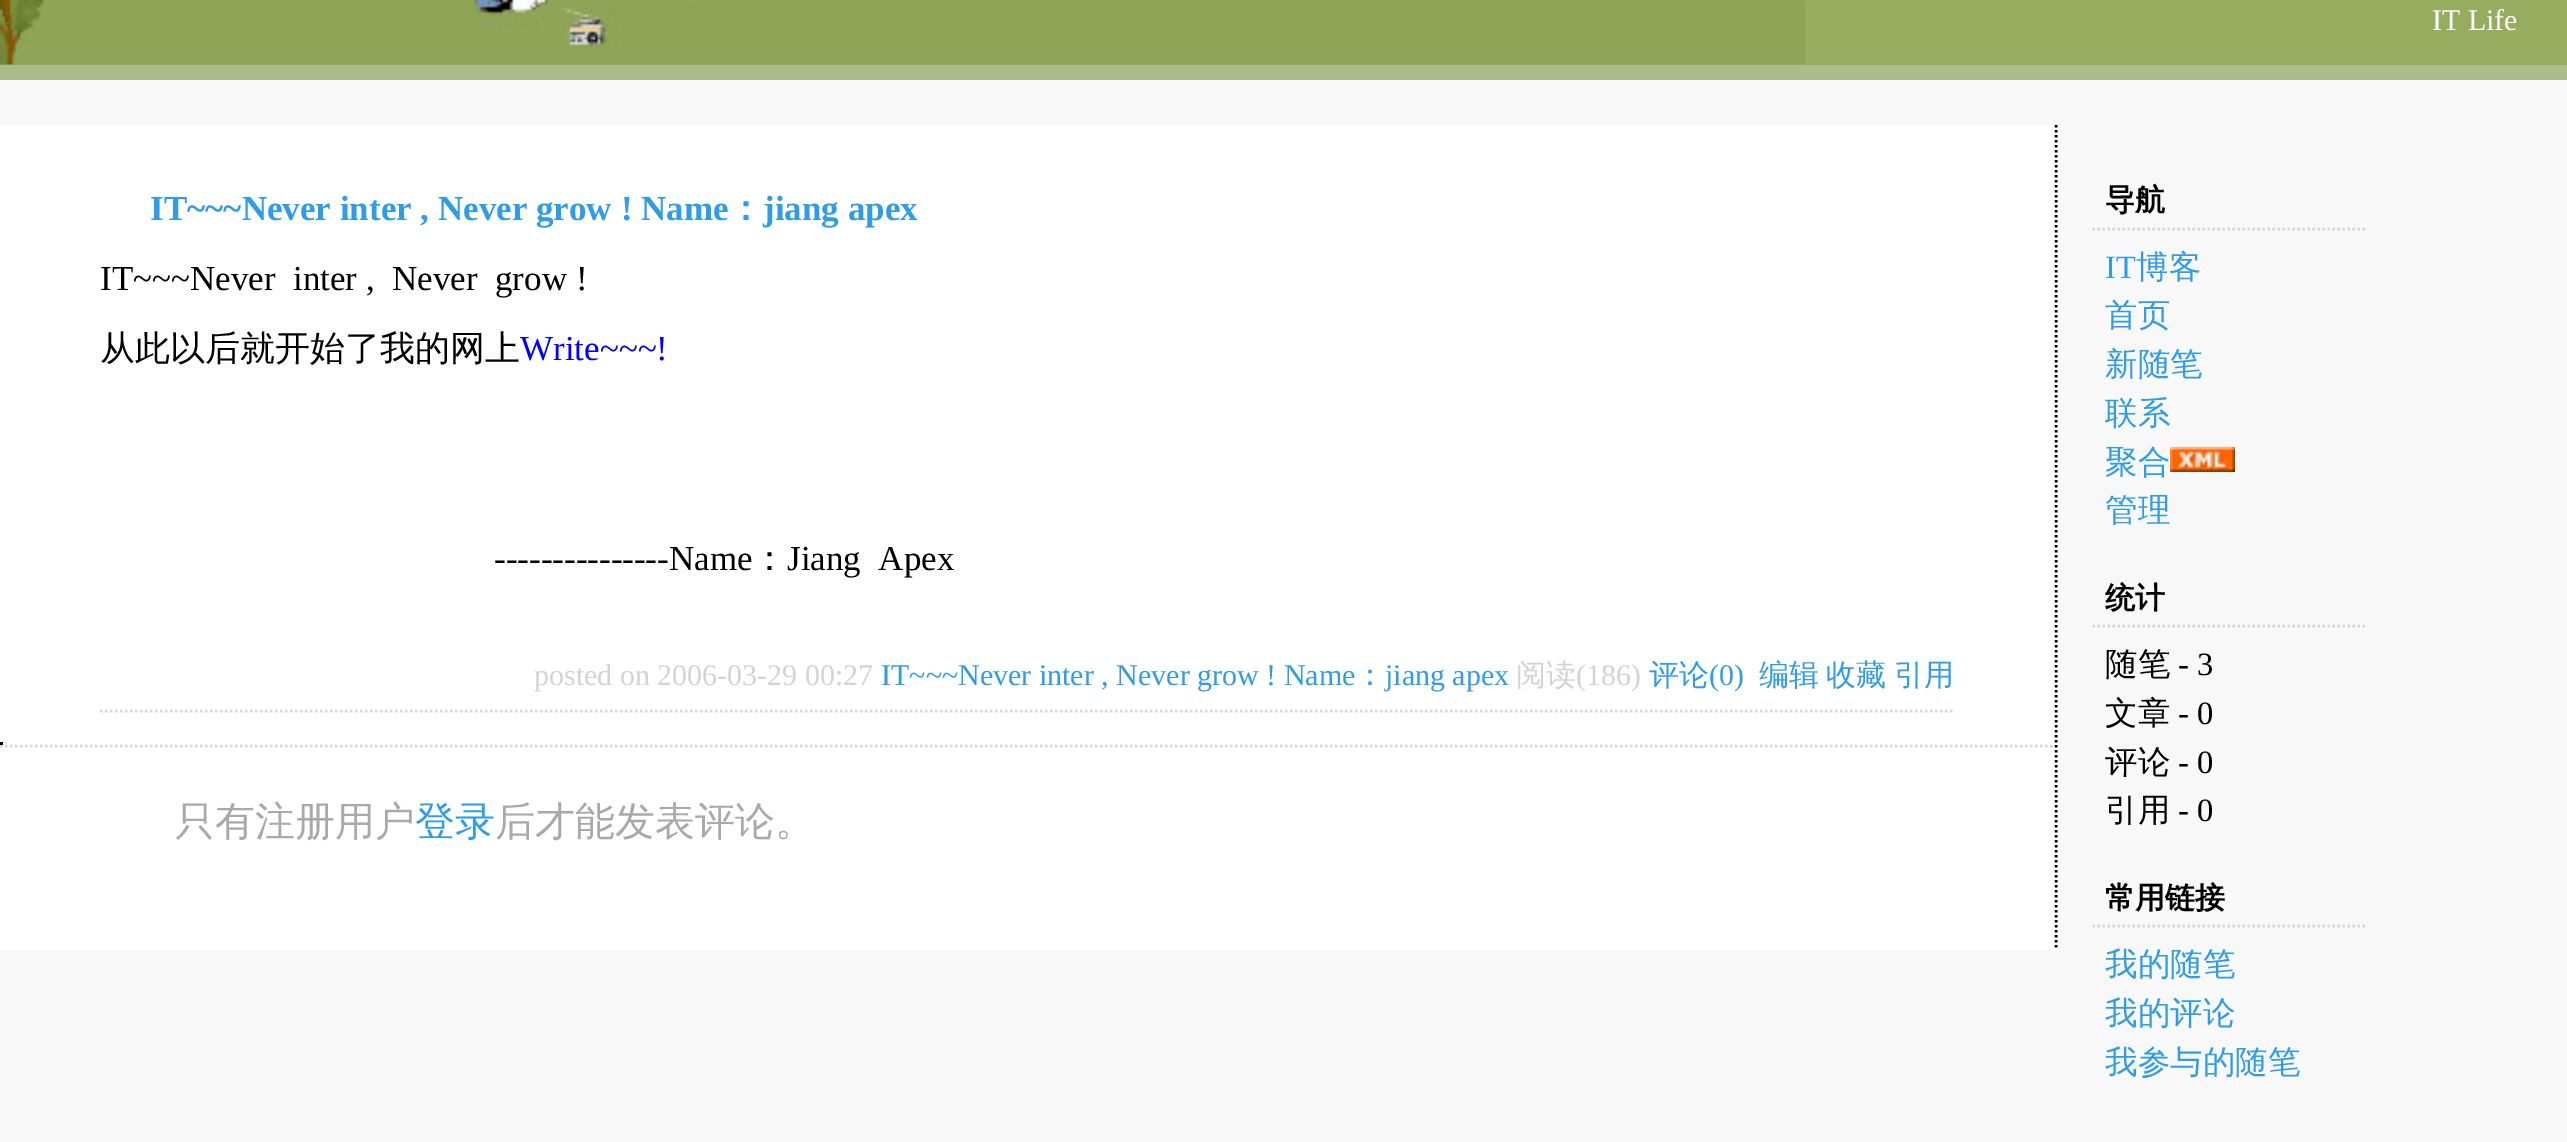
%!PS
<< /PageSize [2567 1142] >> setpagedevice
/picture { 5 dict begin { /h /w /y /x /name } { exch def } forall
  gsave x y translate w h scale
  w h 8 [w 0 0 h 0 0] name (r) file false 3 colorimage grestore end } def
0 1142 translate 1 -1 scale
4 setmiterlimit
0.973 setgray
0 0 2567 1142 rectfill
0.592 0.675 0.373 setrgbcolor
0 0 2567 65 rectfill
(img1.rgb) 0 0 1805 65 picture
0.678 0.733 0.533 setrgbcolor
0 65 2567 15 rectfill
/LiberationSerif-Regular [30 0 0 -30 0 0] selectfont
1 setgray
2432 30 moveto (IT Life) show
0 125 2058 825 rectfill
0 setgray
2.5 setlinewidth
[2.5 2.5] 0 setdash
newpath 2056 125 moveto 2056 950 lineto stroke
/LiberationSerif-Bold [35 0 0 -35 0 0] selectfont
0.18 0.612 0.914 setrgbcolor
150 220 moveto (IT~~~Never inter , Never grow ! Name) show
/WenQuanYiZenHei-Bold [35 0 0 -35 0 0] selectfont
728 220 moveto (：) show
/LiberationSerif-Bold [35 0 0 -35 0 0] selectfont
763 220 moveto (jiang apex) show
/LiberationSerif-Regular [35 0 0 -35 0 0] selectfont
0 setgray
100 290 moveto (IT~~~Never  inter ,  Never  grow !) show
/WenQuanYiZenHei-Medium [35 0 0 -35 0 0] selectfont
100 360 moveto (从此以后就开始了我的网上) show
/LiberationSerif-Regular [35 0 0 -35 0 0] selectfont
0 0 1 setrgbcolor
520 360 moveto (Write~~~!) show
0 setgray
494 570 moveto (---------------Name) show
/WenQuanYiZenHei-Medium [35 0 0 -35 0 0] selectfont
752 570 moveto (：) show
/LiberationSerif-Regular [35 0 0 -35 0 0] selectfont
787 570 moveto (Jiang  Apex) show
0.839 setgray
newpath 100 711 moveto 1955 711 lineto stroke
/LiberationSerif-Regular [30 0 0 -30 0 0] selectfont
0.827 setgray
534 685 moveto (posted on 2006-03-29 00:27) show
0.18 0.612 0.914 setrgbcolor
881 685 moveto (IT~~~Never inter , Never grow ! Name) show
/WenQuanYiZenHei-Medium [30 0 0 -30 0 0] selectfont
1355 685 moveto (：) show
/LiberationSerif-Regular [30 0 0 -30 0 0] selectfont
1385 685 moveto (jiang apex) show
/WenQuanYiZenHei-Medium [30 0 0 -30 0 0] selectfont
0.827 setgray
1516 685 moveto (阅读) show
/LiberationSerif-Regular [30 0 0 -30 0 0] selectfont
1576 685 moveto (\(186\)) show
/WenQuanYiZenHei-Medium [30 0 0 -30 0 0] selectfont
0.18 0.612 0.914 setrgbcolor
1649 685 moveto (评论) show
/LiberationSerif-Regular [30 0 0 -30 0 0] selectfont
1709 685 moveto (\(0\)) show
/WenQuanYiZenHei-Medium [30 0 0 -30 0 0] selectfont
1759 685 moveto (编辑) show
1826 685 moveto (收藏) show
1894 685 moveto (引用) show
0.839 setgray
newpath 0 746 moveto 2055 746 lineto stroke
0 setgray
0 742 3 3 rectfill
/WenQuanYiZenHei-Medium [40 0 0 -40 0 0] selectfont
0.663 setgray
175 835 moveto (只有注册用户) show
0.18 0.612 0.914 setrgbcolor
415 835 moveto (登录) show
0.663 setgray
495 835 moveto (后才能发表评论。) show
0.839 setgray
newpath 2092.5 229 moveto 2367.5 229 lineto stroke
/WenQuanYiZenHei-Bold [30 0 0 -30 0 0] selectfont
0 setgray
2105 210 moveto (导航) show
/LiberationSerif-Regular [32.5 0 0 -32.5 0 0] selectfont
0.18 0.612 0.914 setrgbcolor
2105 278 moveto (IT) show
/WenQuanYiZenHei-Medium [32.5 0 0 -32.5 0 0] selectfont
2136 278 moveto (博客) show
2105 326 moveto (首页) show
2105 375 moveto (新随笔) show
2105 424 moveto (联系) show
2105 473 moveto (聚合) show
(img2.rgb) 2170 447 65 25 picture
2105 521 moveto (管理) show
0.839 setgray
newpath 2092.5 626 moveto 2367.5 626 lineto stroke
/WenQuanYiZenHei-Bold [30 0 0 -30 0 0] selectfont
0 setgray
2105 608 moveto (统计) show
/WenQuanYiZenHei-Medium [32.5 0 0 -32.5 0 0] selectfont
2105 675 moveto (随笔) show
/LiberationSerif-Regular [32.5 0 0 -32.5 0 0] selectfont
2178 675 moveto (- 3) show
/WenQuanYiZenHei-Medium [32.5 0 0 -32.5 0 0] selectfont
2105 724 moveto (文章) show
/LiberationSerif-Regular [32.5 0 0 -32.5 0 0] selectfont
2178 724 moveto (- 0) show
/WenQuanYiZenHei-Medium [32.5 0 0 -32.5 0 0] selectfont
2105 773 moveto (评论) show
/LiberationSerif-Regular [32.5 0 0 -32.5 0 0] selectfont
2178 773 moveto (- 0) show
/WenQuanYiZenHei-Medium [32.5 0 0 -32.5 0 0] selectfont
2105 821 moveto (引用) show
/LiberationSerif-Regular [32.5 0 0 -32.5 0 0] selectfont
2178 821 moveto (- 0) show
0.839 setgray
newpath 2092.5 926 moveto 2367.5 926 lineto stroke
/WenQuanYiZenHei-Bold [30 0 0 -30 0 0] selectfont
0 setgray
2105 908 moveto (常用链接) show
/WenQuanYiZenHei-Medium [32.5 0 0 -32.5 0 0] selectfont
0.18 0.612 0.914 setrgbcolor
2105 975 moveto (我的随笔) show
2105 1024 moveto (我的评论) show
2105 1073 moveto (我参与的随笔) show
showpage
